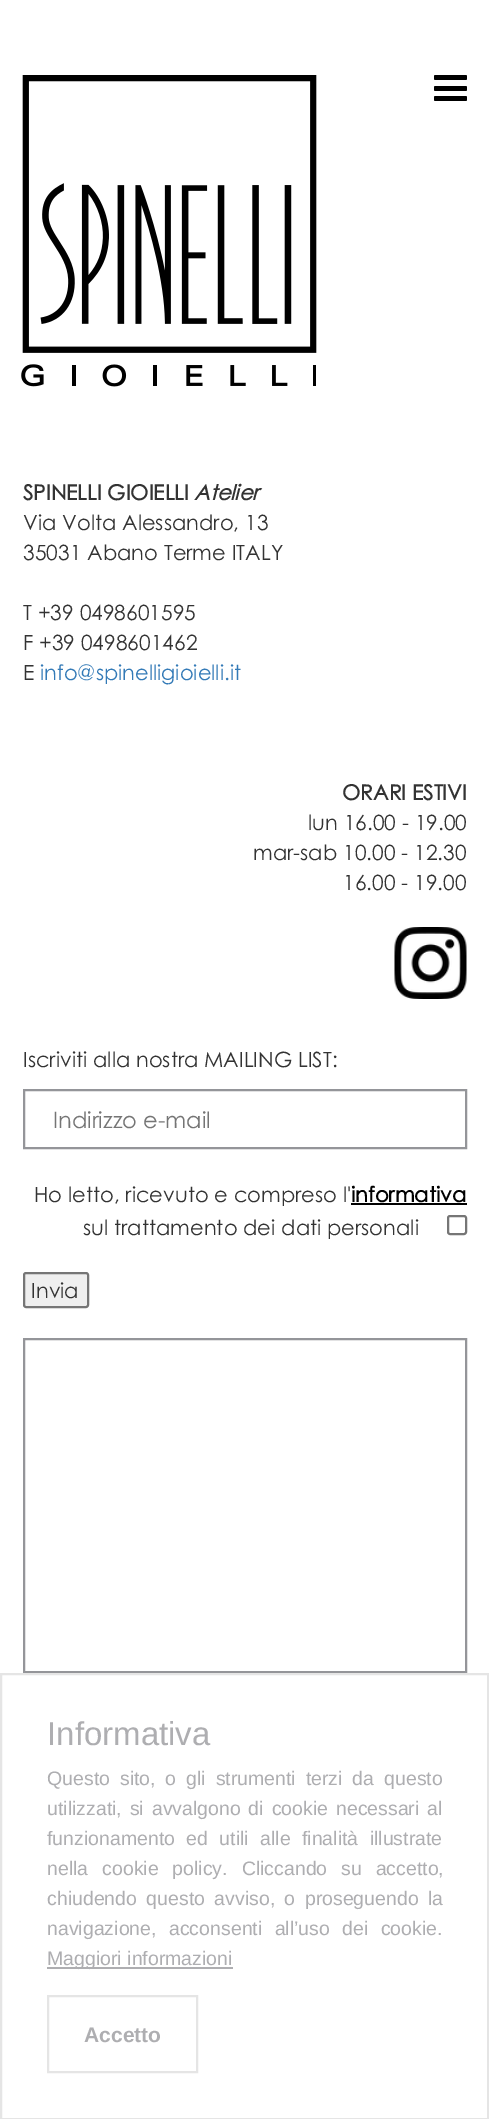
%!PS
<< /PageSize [489 2119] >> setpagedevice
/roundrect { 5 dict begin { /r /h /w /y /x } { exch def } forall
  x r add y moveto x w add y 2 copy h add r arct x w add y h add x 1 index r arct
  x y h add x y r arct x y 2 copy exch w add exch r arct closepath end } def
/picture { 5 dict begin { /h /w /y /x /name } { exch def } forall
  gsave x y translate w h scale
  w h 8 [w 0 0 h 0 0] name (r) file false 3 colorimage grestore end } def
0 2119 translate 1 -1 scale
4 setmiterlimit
1 setgray
0 0 489 2119 rectfill
(img1.rgb) 21 75 296 312 picture
0 setgray
434 75 33 5 1.5 roundrect fill
434 86 33 5 1.5 roundrect fill
434 96 33 5 1.5 roundrect fill
/CenturyGothic-Bold [21 0 0 -21 0 0] selectfont
0.2 setgray
23 500 moveto (SPINELLI GIOIELLI) show
/CenturyGothic-BoldItalic [21 0 0 -21 0 0] selectfont
194 500 moveto (Atelier) show
/CenturyGothic-Regular [21 0 0 -21 0 0] selectfont
23 530 moveto (Via Volta Alessandro, 13) show
23 560 moveto (35031 Abano Terme ITALY) show
23 620 moveto (T +39 0498601595) show
23 650 moveto (F +39 0498601462) show
23 680 moveto (E) show
0.2 0.478 0.718 setrgbcolor
40 680 moveto (info@spinelligioielli.it) show
/CenturyGothic-Bold [21 0 0 -21 0 0] selectfont
0.2 setgray
342 800 moveto (ORARI ESTIVI) show
/CenturyGothic-Regular [21 0 0 -21 0 0] selectfont
308 830 moveto (lun 16.00 - 19.00) show
253 860 moveto (mar-sab 10.00 - 12.30) show
343 890 moveto (16.00 - 19.00) show
(img2.rgb) 394 927 73 72 picture
23 1067 moveto (Iscriviti alla nostra MAILING LIST:) show
0.58 0.584 0.6 setrgbcolor
2 setlinewidth
24 1090 442 58 rectstroke
/CenturyGothic-Regular [22.5 0 0 -22.5 0 0] selectfont
0.459 setgray
53 1128 moveto (Indirizzo e-mail) show
/CenturyGothic-Regular [21 0 0 -21 0 0] selectfont
0.2 setgray
34 1202 moveto (Ho letto, ricevuto e compreso l') show
0 setgray
351 1203 116 2 rectfill
/CenturyGothic-Bold [21 0 0 -21 0 0] selectfont
351 1202 moveto (informativa) show
/CenturyGothic-Regular [21 0 0 -21 0 0] selectfont
0.2 setgray
83 1235 moveto (sul trattamento dei dati personali) show
0.463 setgray
448 1216 18 18 2 roundrect stroke
0.937 setgray
24 1273 64 34 2 roundrect gsave fill grestore
0.463 setgray
stroke
0.2 setgray
31 1298 moveto (Invia) show
0.58 0.584 0.6 setrgbcolor
24 1339 442 333 rectstroke
0.898 setgray
1 1674 487 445 rectstroke
/LiberationSans-Regular [33 0 0 -33 0 0] selectfont
0.682 0.682 0.694 setrgbcolor
47 1745 moveto (Informativa) show
/LiberationSans-Regular [19.5 0 0 -19.5 0 0] selectfont
47 1785 moveto 4.5 0 32 (Questo sito, o gli strumenti terzi da questo) widthshow
47 1815 moveto 2.5 0 32 (utilizzati, si avvalgono di cookie necessari al) widthshow
47 1845 moveto 6 0 32 (funzionamento ed utili alle finalità illustrate) widthshow
47 1875 moveto 8.5 0 32 (nella cookie policy. Cliccando su accetto,) widthshow
47 1905 moveto 4 0 32 (chiudendo questo avviso, o proseguendo la) widthshow
47 1935 moveto 7 0 32 (navigazione, acconsenti all’uso dei cookie.) widthshow
47 1967 186 2 rectfill
47 1965 moveto (Maggiori informazioni) show
0.898 setgray
48 1996 149 76 rectstroke
/LiberationSans-Bold [21 0 0 -21 0 0] selectfont
0.682 0.682 0.694 setrgbcolor
84 2042 moveto (Accetto) show
showpage
